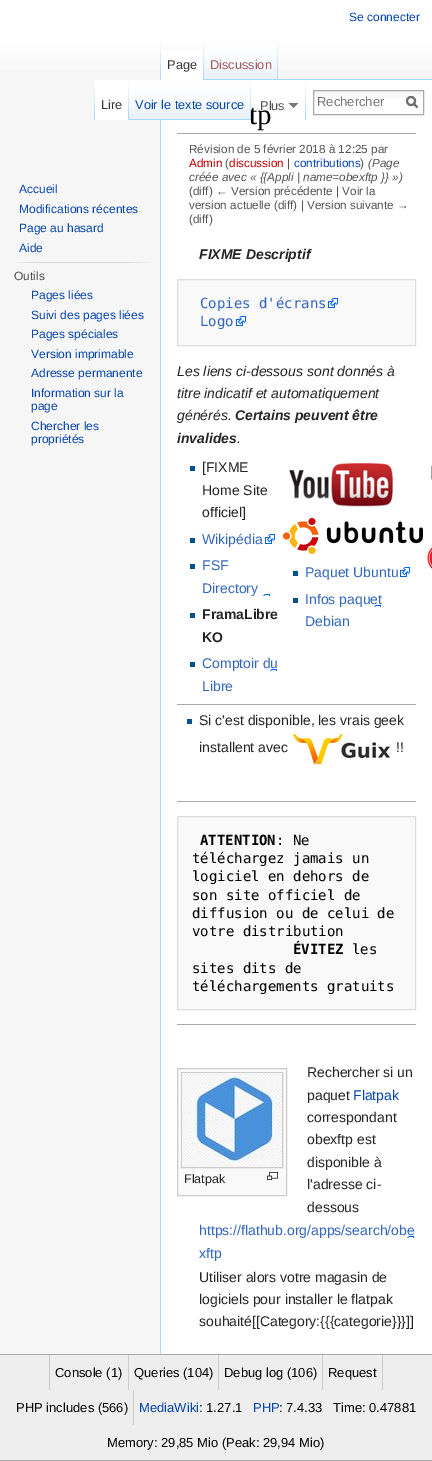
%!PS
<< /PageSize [432 1461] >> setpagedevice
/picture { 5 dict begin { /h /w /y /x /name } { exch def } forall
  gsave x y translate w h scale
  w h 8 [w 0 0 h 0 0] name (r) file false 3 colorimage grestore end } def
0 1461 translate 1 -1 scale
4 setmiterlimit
0.965 setgray
0 0 432 1461 rectfill
gsave newpath 0 0 moveto 432 0 lineto 432 69 lineto 0 69 lineto closepath clip newpath
<< /ShadingType 2 /ColorSpace /DeviceRGB /Coords [216 0 216 80] /Extend [true true] /Function << /FunctionType 3 /Domain [0 1] /Functions [<< /FunctionType 2 /Domain [0 1] /C0 [1 1 1] /C1 [1 1 1] /N 1 >> << /FunctionType 2 /Domain [0 1] /C0 [1 1 1] /C1 [0.965 0.965 0.965] /N 1 >>] /Bounds [0.5] /Encode [0 1 0 1] >> >> shfill grestore
/LiberationSans-Regular [12 0 0 -12 0 0] selectfont
0.024 0.271 0.678 setrgbcolor
349 21 moveto (Se connecter) show
(img1.rgb) 160 40 1 39 picture
1 setgray
161 51 42 29 rectfill
(img2.rgb) 203 40 1 40 picture
/LiberationSans-Regular [12.75 0 0 -12.75 0 0] selectfont
0.2 setgray
167 69 moveto (Page) show
(img3.rgb) 204 40 74 40 picture
(img4.rgb) 277 40 1 39 picture
0.647 0.345 0.345 setrgbcolor
210 69 moveto (Discussion) show
(img5.rgb) 94 80 1 40 picture
1 setgray
95 80 33 40 rectfill
(img2.rgb) 128 80 1 40 picture
0.2 setgray
101 109 moveto (Lire) show
1 setgray
161 80 271 1274 rectfill
0.655 0.843 0.976 setrgbcolor
160 79 1 1275 rectfill
/LiberationSerif-Regular [29 0 0 -29 0 0] selectfont
0 setgray
249 124 moveto (tp) show
(img6.rgb) 129 80 122 40 picture
(img4.rgb) 250 80 1 39 picture
/LiberationSans-Regular [12.75 0 0 -12.75 0 0] selectfont
0.024 0.271 0.678 setrgbcolor
135 109 moveto (Voir le texte source) show
(img5.rgb) 305 80 1 40 picture
0.302 setgray
260 110 moveto (Plus) show
0.475 setgray
newpath 298.5 103 moveto 293.5 108 lineto 288.5 103 lineto closepath fill
(img7.rgb) 314 91 109 8 picture
0.667 setgray
313.5 90.5 110 24 rectstroke
/LiberationSans-Regular [13 0 0 -13 0 0] selectfont
0.459 setgray
317 106 moveto (Rechercher) show
0.424 setgray
2 setlinewidth
newpath 417.5 107.5 moveto 413.5 103.5 lineto stroke
newpath 411 101 4 0 360 arc closepath stroke
/LiberationSans-Regular [12 0 0 -12 0 0] selectfont
0.024 0.271 0.678 setrgbcolor
19 193 moveto (Accueil) show
19 213 moveto (Modifications récentes) show
19 232 moveto (Page au hasard) show
19 252 moveto (Aide) show
(img8.rgb) 14 262 135 1 picture
0.302 setgray
14 280 moveto (Outils) show
0.024 0.271 0.678 setrgbcolor
31 299 moveto (Pages liées) show
31 319 moveto (Suivi des pages liées) show
31 338 moveto (Pages spéciales) show
31 358 moveto (Version imprimable) show
31 377 moveto (Adresse permanente) show
31 397 moveto (Information sur la) show
31 410 moveto (page) show
31 430 moveto (Chercher les) show
31 443 moveto (propriétés) show
0.655 0.843 0.976 setrgbcolor
278 79 154 1 rectfill
0.667 setgray
177 133 239 1 rectfill
/LiberationSans-Regular [11.75 0 0 -11.75 0 0] selectfont
0.329 setgray
189 153 moveto (Révision de 5 février 2018 à 12:25 par) show
0.729 0 0 setrgbcolor
189 167 moveto (Admin) show
0.329 setgray
225 167 moveto (\() show
0.729 0 0 setrgbcolor
229 167 moveto (discussion) show
0.329 setgray
287 167 moveto (|) show
0.024 0.271 0.678 setrgbcolor
294 167 moveto (contributions) show
0.329 setgray
360 167 moveto (\)) show
/LiberationSans-Italic [11.75 0 0 -11.75 0 0] selectfont
368 167 moveto (\(Page) show
189 181 moveto (créée avec « {{Appli | name=obexftp }} »\)) show
/LiberationSans-Regular [11.75 0 0 -11.75 0 0] selectfont
189 195 moveto (\(diff\) ← Version précédente | Voir la) show
189 209 moveto (version actuelle \(diff\) | Version suivante →) show
189 223 moveto (\(diff\)) show
/LiberationSans-BoldItalic [14 0 0 -14 0 0] selectfont
0.145 setgray
199 259 moveto (FIXME Descriptif) show
0.976 setgray
newpath 177.5 279.5 moveto 415.5 279.5 lineto 415.5 345.5 lineto 177.5 345.5 lineto closepath gsave fill grestore
0.867 setgray
1 setlinewidth
stroke
/DejaVuSansMono-Regular [14 0 0 -14 0 0] selectfont
0.2 0.4 0.733 setrgbcolor
200 308 moveto (Copies d'écrans) show
(img9.rgb) 328 298 10 10 picture
200 326 moveto (Logo) show
(img9.rgb) 236 316 10 10 picture
/LiberationSans-Italic [14 0 0 -14 0 0] selectfont
0.145 setgray
177 376 moveto (Les liens ci-dessous sont donnés à) show
177 398 moveto (titre indicatif et automatiquement) show
177 420 moveto (générés.) show
/LiberationSans-BoldItalic [14 0 0 -14 0 0] selectfont
235 420 moveto (Certains peuvent être) show
177 443 moveto (invalides) show
/LiberationSans-Italic [14 0 0 -14 0 0] selectfont
237 443 moveto (.) show
0 0.322 0.549 setrgbcolor
190 466 5 5 rectfill
/LiberationSans-Regular [14 0 0 -14 0 0] selectfont
0.145 setgray
202 472 moveto ([FIXME) show
202 495 moveto (Home Site) show
202 517 moveto (officiel]) show
0 0.322 0.549 setrgbcolor
190 538 5 5 rectfill
0.2 0.4 0.733 setrgbcolor
202 544 moveto (Wikipédia) show
(img10.rgb) 265 534 10 10 picture
0 0.322 0.549 setrgbcolor
190 564 5 5 rectfill
0.2 0.4 0.733 setrgbcolor
202 570 moveto (FSF) show
202 593 moveto (Directory) show
(img11.rgb) 263 594 7 2 picture
0 0.322 0.549 setrgbcolor
190 613 5 5 rectfill
/LiberationSans-Bold [14 0 0 -14 0 0] selectfont
0.145 setgray
202 619 moveto (FramaLibre) show
202 642 moveto (KO) show
0 0.322 0.549 setrgbcolor
190 662 5 5 rectfill
(img11.rgb) 270 669 7 2 picture
/LiberationSans-Regular [14 0 0 -14 0 0] selectfont
0.2 0.4 0.733 setrgbcolor
202 668 moveto (Comptoir du) show
202 691 moveto (Libre) show
(img12.rgb) 428 464 4 16 picture
(img13.rgb) 427 547 5 23 picture
(img14.rgb) 289 462 104 45 picture
(img15.rgb) 283 518 140 36 picture
0 0.322 0.549 setrgbcolor
293 571 5 5 rectfill
0.2 0.4 0.733 setrgbcolor
305 577 moveto (Paquet Ubuntu) show
(img10.rgb) 400 567 10 10 picture
0 0.322 0.549 setrgbcolor
293 598 5 5 rectfill
(img11.rgb) 374 605 7 2 picture
0.2 0.4 0.733 setrgbcolor
305 604 moveto (Infos paquet) show
305 626 moveto (Debian) show
0.667 setgray
177 704 239 1 rectfill
0 0.322 0.549 setrgbcolor
187 719 5 5 rectfill
0.145 setgray
199 725 moveto (Si c'est disponible, les vrais geek) show
199 752 moveto (installent avec) show
(img16.rgb) 292 732 98 33 picture
396 752 moveto (!!) show
0.667 setgray
177 801 239 1 rectfill
0.976 setgray
newpath 177.5 816.5 moveto 415.5 816.5 lineto 415.5 1009.5 lineto 177.5 1009.5 lineto closepath gsave fill grestore
0.867 setgray
stroke
/DejaVuSansMono-Bold [14 0 0 -14 0 0] selectfont
0 setgray
200 845 moveto (ATTENTION) show
/DejaVuSansMono-Regular [14 0 0 -14 0 0] selectfont
276 845 moveto (: Ne) show
192 863 moveto (téléchargez jamais un) show
192 881 moveto (logiciel en dehors de) show
192 900 moveto (son site officiel de) show
192 918 moveto (diffusion ou de celui de) show
192 936 moveto (votre distribution) show
/DejaVuSansMono-Bold [14 0 0 -14 0 0] selectfont
293 954 moveto (ÉVITEZ) show
/DejaVuSansMono-Regular [14 0 0 -14 0 0] selectfont
352 954 moveto (les) show
192 973 moveto (sites dits de) show
192 991 moveto (téléchargements gratuits) show
0.667 setgray
177 1024 239 1 rectfill
/LiberationSans-Regular [14 0 0 -14 0 0] selectfont
0.145 setgray
307 1077 moveto (Rechercher si un) show
307 1100 moveto (paquet) show
0.024 0.271 0.678 setrgbcolor
353 1100 moveto (Flatpak) show
0.145 setgray
307 1122 moveto (correspondant) show
307 1144 moveto (obexftp est) show
307 1167 moveto (disponible à) show
307 1189 moveto (l'adresse ci-) show
307 1212 moveto (dessous) show
(img11.rgb) 407 1236 7 2 picture
0.2 0.4 0.733 setrgbcolor
199 1235 moveto (https://flathub.org/apps/search/obe) show
199 1258 moveto (xftp) show
0.145 setgray
199 1282 moveto (Utiliser alors votre magasin de) show
199 1304 moveto (logiciels pour installer le flatpak) show
199 1326 moveto (souhaité[[Category:{{{categorie}}}]]) show
0.976 setgray
newpath 177.5 1068.5 moveto 286.5 1068.5 lineto 286.5 1195.5 lineto 177.5 1195.5 lineto closepath gsave fill grestore
0.8 setgray
stroke
181.5 1072.5 101 95 rectstroke
(img17.rgb) 182 1073 100 94 picture
/LiberationSans-Regular [12.5 0 0 -12.5 0 0] selectfont
0.145 setgray
184 1183 moveto (Flatpak) show
(img18.rgb) 267 1172 11 8 picture
0.933 setgray
0 1355 432 105 rectfill
0.667 setgray
0 1354 432 1 rectfill
0 1460 432 1 rectfill
0.8 setgray
128 1355 1 35 rectfill
49 1355 1 35 rectfill
/LiberationSans-Regular [13 0 0 -13 0 0] selectfont
0 setgray
55 1377 moveto (Console \(1\)) show
0.8 setgray
218 1355 1 35 rectfill
0 setgray
134 1377 moveto (Queries \(104\)) show
0.8 setgray
322 1355 1 35 rectfill
0 setgray
224 1377 moveto (Debug log \(106\)) show
0.8 setgray
382 1355 1 35 rectfill
0 setgray
328 1377 moveto (Request) show
0.8 setgray
133 1390 1 35 rectfill
0 setgray
16 1412 moveto (PHP includes \(566\)) show
0.024 0.271 0.678 setrgbcolor
139 1412 moveto (MediaWiki) show
0 setgray
199 1412 moveto (: 1.27.1) show
0.024 0.271 0.678 setrgbcolor
253 1412 moveto (PHP) show
0 setgray
279 1412 moveto (: 7.4.33) show
333 1412 moveto (Time: 0.47881) show
107 1447 moveto (Memory: 29,85 Mio \(Peak: 29,94 Mio\)) show
showpage
